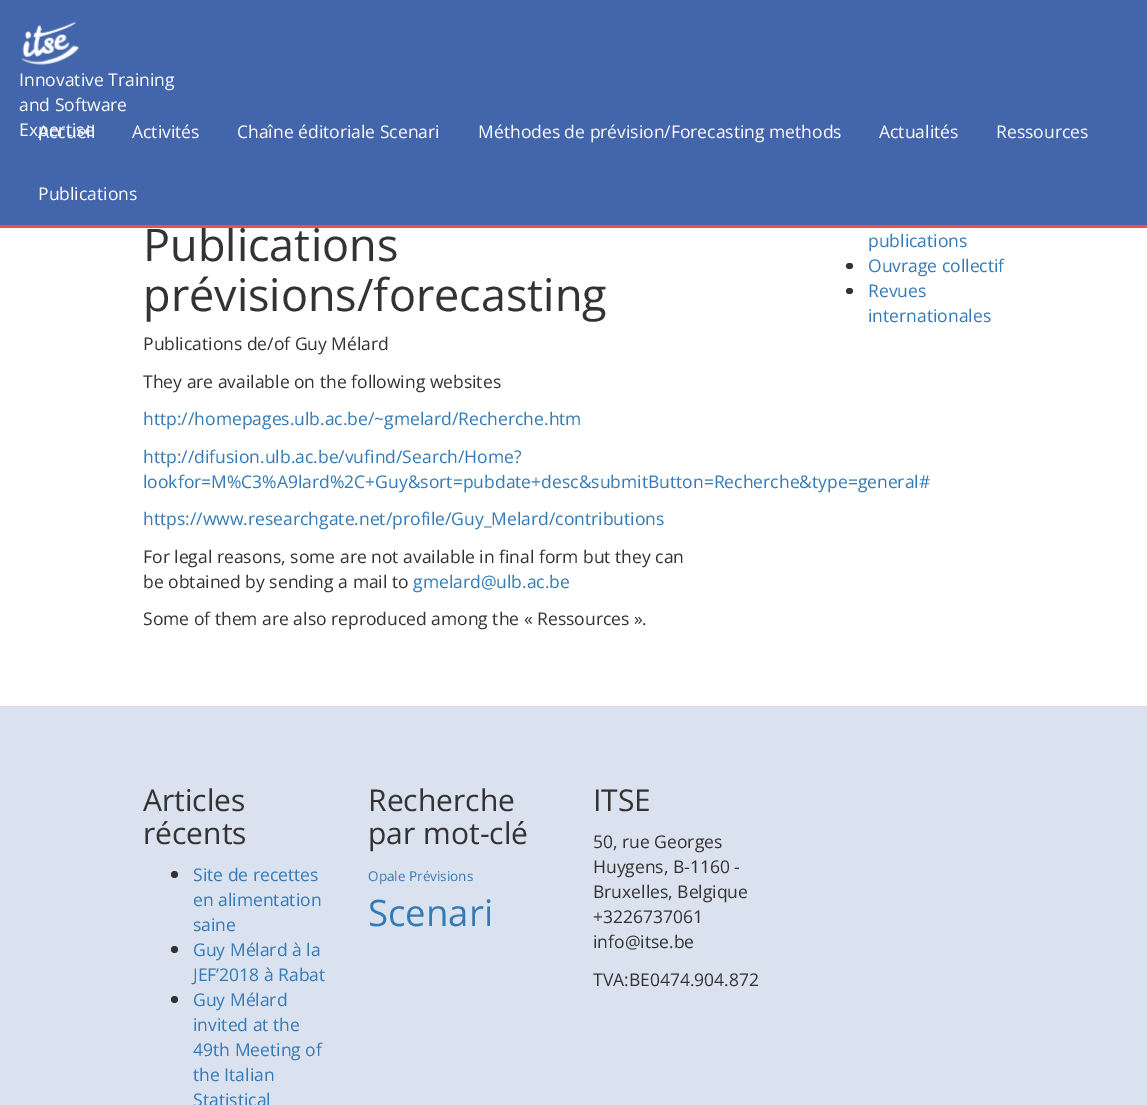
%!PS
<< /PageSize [1147 1105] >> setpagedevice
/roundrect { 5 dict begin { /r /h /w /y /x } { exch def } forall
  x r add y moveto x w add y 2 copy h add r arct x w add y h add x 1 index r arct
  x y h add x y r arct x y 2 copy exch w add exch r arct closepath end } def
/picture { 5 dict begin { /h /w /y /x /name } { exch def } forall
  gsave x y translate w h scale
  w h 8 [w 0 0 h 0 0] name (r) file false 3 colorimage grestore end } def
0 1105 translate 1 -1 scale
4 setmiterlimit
1 setgray
0 0 1147 1105 rectfill
0.259 0.396 0.671 setrgbcolor
0 0 1147 225 rectfill
/OpenSans-Regular [45 0 0 -45 0 0] selectfont
0.2 setgray
143 261 moveto (Publications) show
0.918 0.325 0.267 setrgbcolor
0 225 1147 3 rectfill
(img1.rgb) 21 21 59 44 picture
/OpenSans-Regular [17.5 0 0 -17.5 0 0] selectfont
1 setgray
19 86 moveto (Innovative Training) show
19 111 moveto (and Software) show
19 136 moveto (Expertise) show
38 138 moveto (Accueil) show
132 138 moveto (Activités) show
237 138 moveto (Chaîne éditoriale Scenari) show
478 138 moveto (Méthodes de prévision/Forecasting methods) show
879 138 moveto (Actualités) show
996 138 moveto (Ressources) show
38 200 moveto (Publications) show
/OpenSans-Regular [45 0 0 -45 0 0] selectfont
0.2 setgray
143 311 moveto (prévisions/forecasting) show
/OpenSans-Regular [17.5 0 0 -17.5 0 0] selectfont
143 350 moveto (Publications de/of Guy Mélard) show
143 388 moveto (They are available on the following websites) show
0.2 0.478 0.718 setrgbcolor
143 425 moveto (http://homepages.ulb.ac.be/~gmelard/Recherche.htm) show
143 463 moveto (http://difusion.ulb.ac.be/vufind/Search/Home?) show
143 488 moveto (lookfor=M%C3%A9lard%2C+Guy&sort=pubdate+desc&submitButton=Recherche&type=general#) show
143 525 moveto (https://www.researchgate.net/profile/Guy_Melard/contributions) show
0.2 setgray
143 563 moveto (For legal reasons, some are not available in final form but they can) show
143 588 moveto (be obtained by sending a mail to) show
0.2 0.478 0.718 setrgbcolor
413 588 moveto (gmelard@ulb.ac.be) show
0.2 setgray
143 625 moveto (Some of them are also reproduced among the « Ressources ».) show
0.2 0.478 0.718 setrgbcolor
868 247 moveto (publications) show
0.2 setgray
846 263 7 6 3 roundrect fill
0.2 0.478 0.718 setrgbcolor
868 272 moveto (Ouvrage collectif) show
0.2 setgray
846 288 7 6 3 roundrect fill
0.2 0.478 0.718 setrgbcolor
868 297 moveto (Revues) show
868 322 moveto (internationales) show
0.855 0.882 0.937 setrgbcolor
0 706 1147 399 rectfill
/OpenSans-Regular [30 0 0 -30 0 0] selectfont
0.2 setgray
143 811 moveto (Articles) show
143 844 moveto (récents) show
newpath 174.5 874.5 3.5 0 360 arc closepath fill
/OpenSans-Regular [17.5 0 0 -17.5 0 0] selectfont
0.2 0.478 0.718 setrgbcolor
193 881 moveto (Site de recettes) show
193 906 moveto (en alimentation) show
193 931 moveto (saine) show
0.2 setgray
newpath 174.5 949.5 3.5 0 360 arc closepath fill
0.2 0.478 0.718 setrgbcolor
193 956 moveto (Guy Mélard à la) show
193 981 moveto (JEF’2018 à Rabat) show
0.2 setgray
newpath 174.5 999.5 3.5 0 360 arc closepath fill
0.2 0.478 0.718 setrgbcolor
193 1006 moveto (Guy Mélard) show
193 1031 moveto (invited at the) show
193 1056 moveto (49th Meeting of) show
193 1081 moveto (the Italian) show
193 1106 moveto (Statistical) show
/OpenSans-Regular [30 0 0 -30 0 0] selectfont
0.2 setgray
368 811 moveto (Recherche) show
368 844 moveto (par mot-clé) show
/OpenSans-Regular [13.5 0 0 -13.5 0 0] selectfont
0.2 0.478 0.718 setrgbcolor
368 881 moveto (Opale) show
409 881 moveto (Prévisions) show
/OpenSans-Regular [36.5 0 0 -36.5 0 0] selectfont
368 926 moveto (Scenari) show
/OpenSans-Regular [30 0 0 -30 0 0] selectfont
0.2 setgray
593 811 moveto (ITSE) show
/OpenSans-Regular [17.5 0 0 -17.5 0 0] selectfont
593 848 moveto (50, rue Georges) show
593 873 moveto (Huygens, B-1160 -) show
593 898 moveto (Bruxelles, Belgique) show
593 923 moveto (+3226737061) show
593 948 moveto (info@itse.be) show
593 986 moveto (TVA:BE0474.904.872) show
showpage
